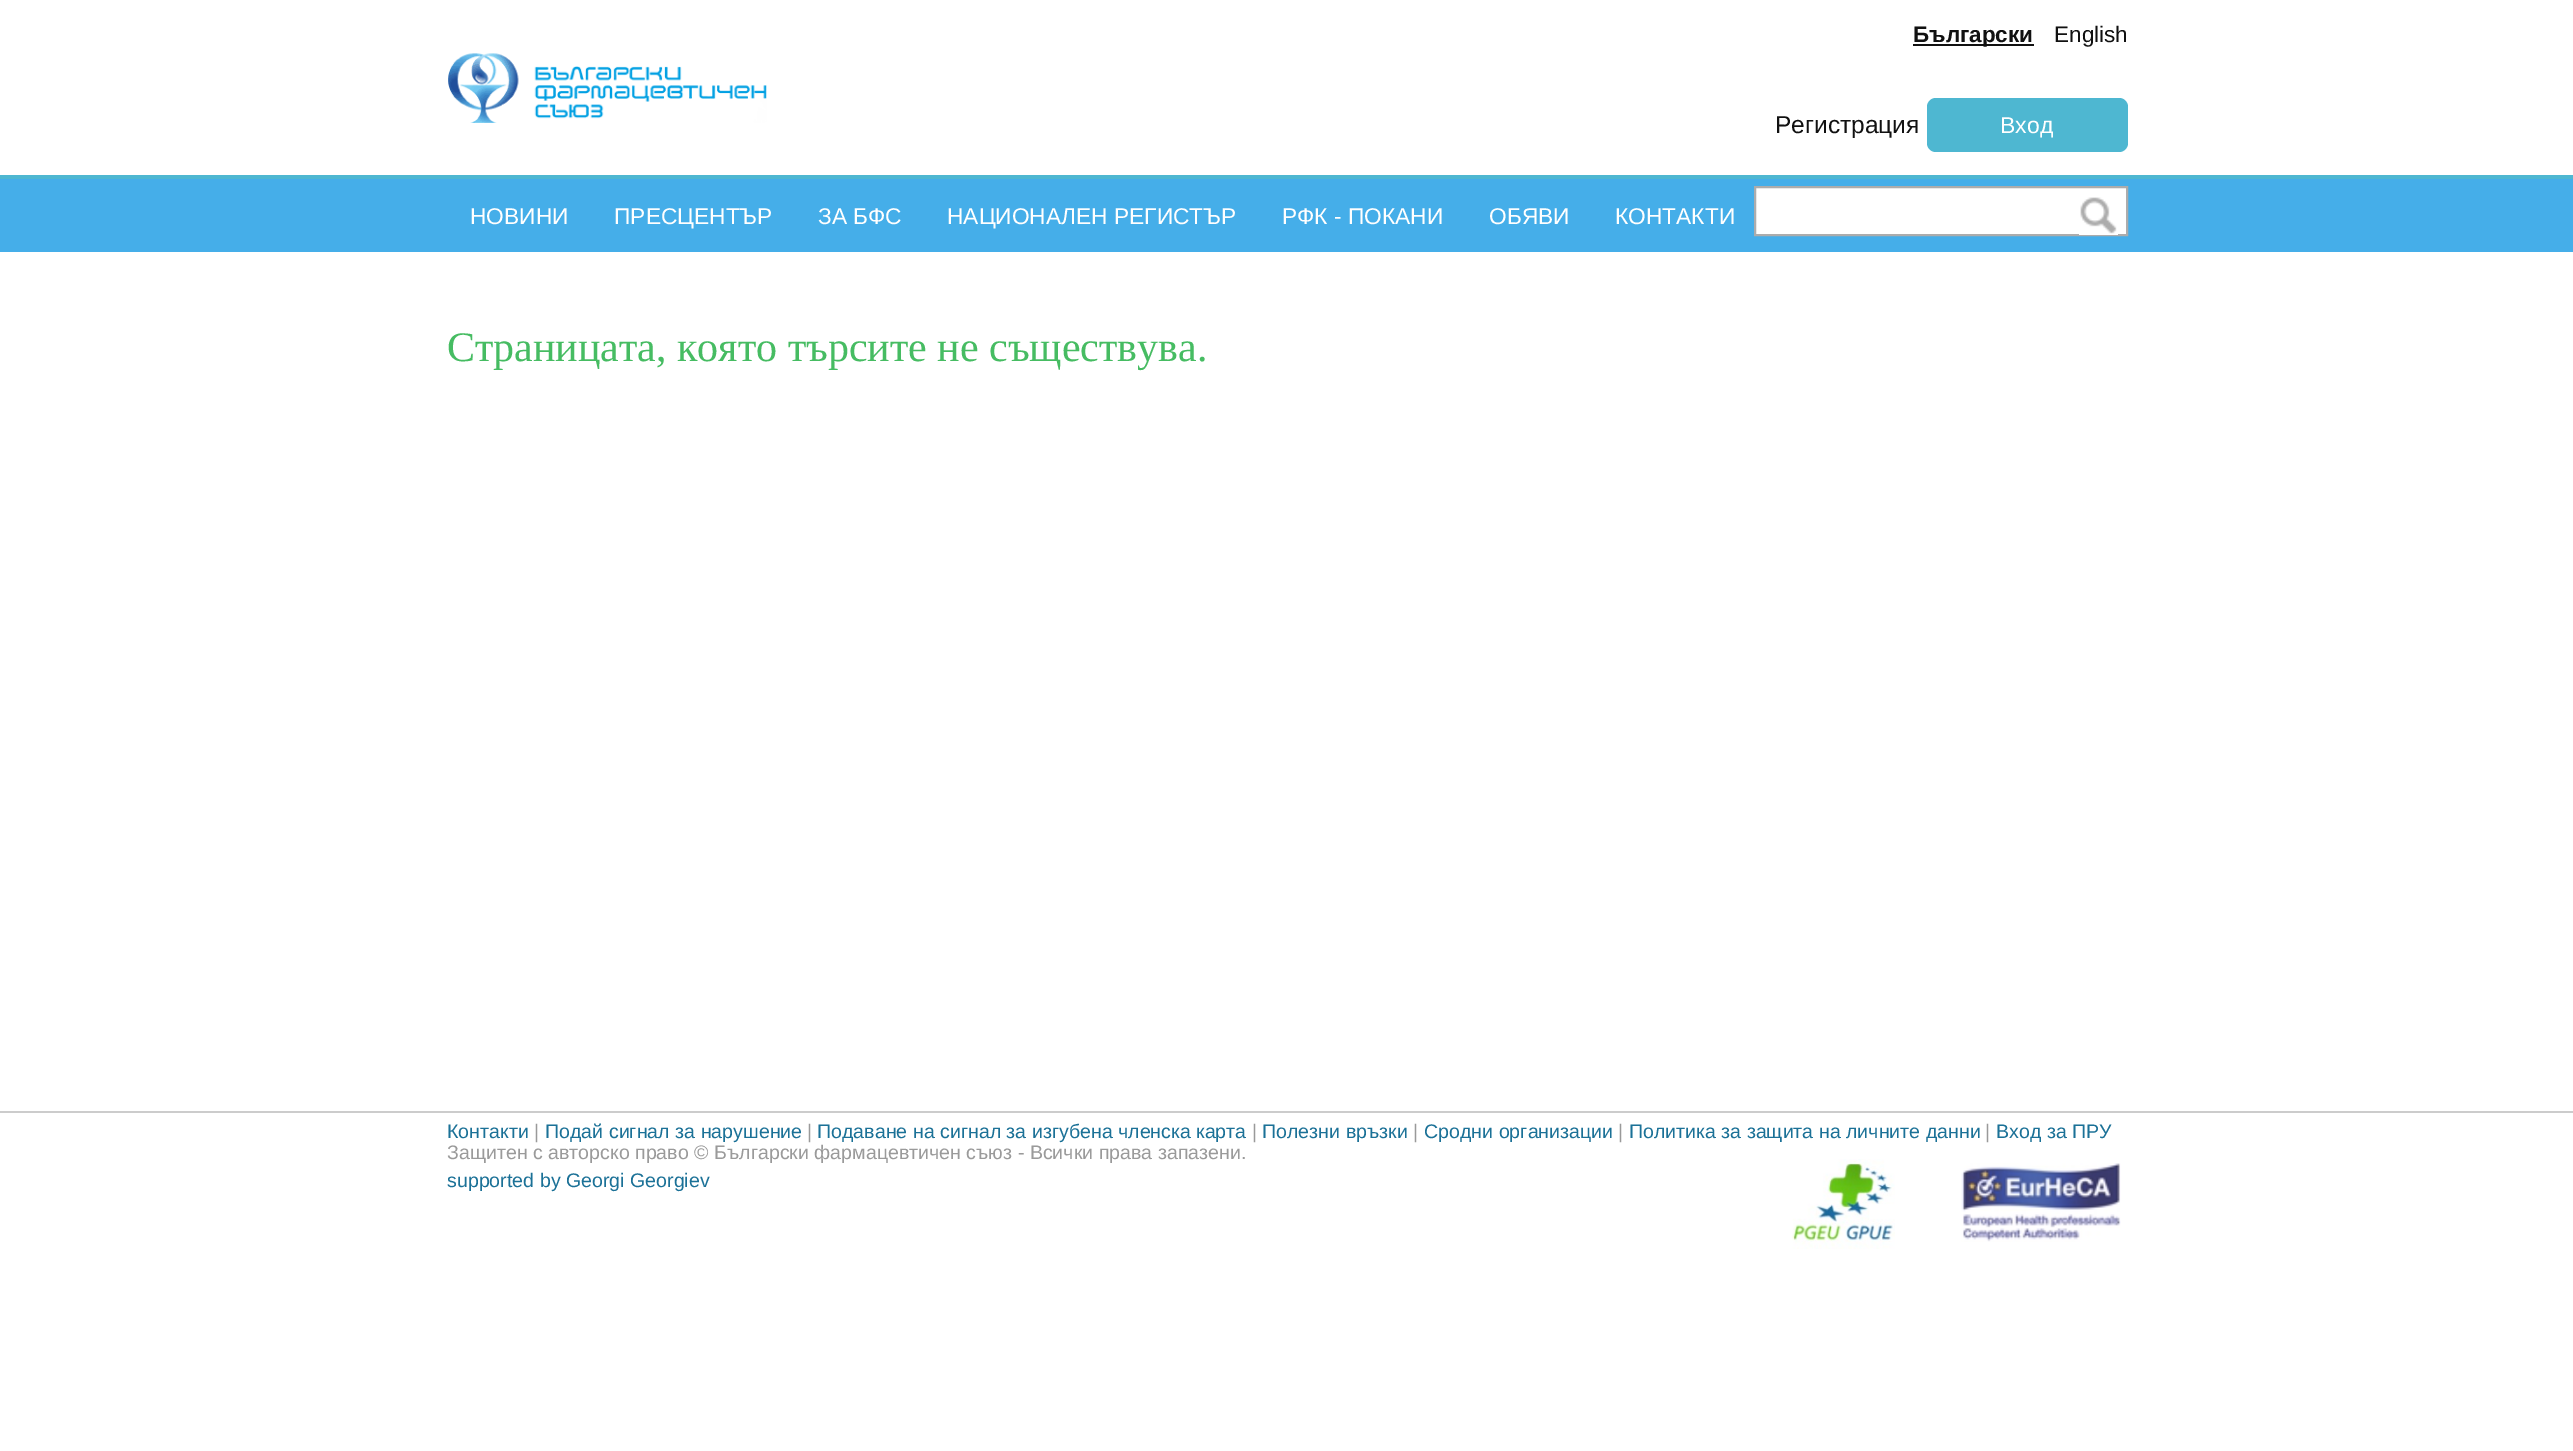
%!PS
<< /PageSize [2573 1451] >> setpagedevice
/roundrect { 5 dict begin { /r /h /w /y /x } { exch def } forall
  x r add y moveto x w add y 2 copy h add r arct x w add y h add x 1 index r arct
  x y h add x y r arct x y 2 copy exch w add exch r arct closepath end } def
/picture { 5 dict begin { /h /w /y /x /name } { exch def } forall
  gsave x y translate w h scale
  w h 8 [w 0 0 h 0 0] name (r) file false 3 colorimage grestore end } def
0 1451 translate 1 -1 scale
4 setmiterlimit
1 setgray
0 0 2573 1451 rectfill
0.306 0.718 0.82 setrgbcolor
0 175 2573 4 rectfill
0.067 setgray
1913 44 121 2 rectfill
/LiberationSans-Bold [22.5 0 0 -22.5 0 0] selectfont
1913 42 moveto (Български) show
/LiberationSans-Regular [22.5 0 0 -22.5 0 0] selectfont
2054 42 moveto (English) show
(img1.rgb) 448 53 319 70 picture
/LiberationSans-Regular [24.5 0 0 -24.5 0 0] selectfont
1775 133 moveto (Регистрация) show
0.306 0.718 0.82 setrgbcolor
1927 98 201 54 9 roundrect fill
/LiberationSans-Regular [23 0 0 -23 0 0] selectfont
1 setgray
2000 133 moveto (Вход) show
0.271 0.682 0.914 setrgbcolor
0 179 2573 73 rectfill
/LiberationSans-Regular [22.75 0 0 -22.75 0 0] selectfont
1 setgray
470 224 moveto (НОВИНИ) show
614 224 moveto (ПРЕСЦЕНТЪР) show
818 224 moveto (ЗА БФС) show
947 224 moveto (НАЦИОНАЛЕН РЕГИСТЪР) show
1282 224 moveto (РФК - ПОКАНИ) show
1489 224 moveto (ОБЯВИ) show
1615 224 moveto (КОНТАКТИ) show
newpath 1755 187 moveto 2127 187 lineto 2127 235 lineto 1755 235 lineto closepath gsave fill grestore
0.675 setgray
2 setlinewidth
stroke
1 setgray
2079 234 39 1 rectfill
(img2.rgb) 2080 197 37 37 picture
/LiberationSerif-Regular [42 0 0 -42 0 0] selectfont
0.275 0.737 0.384 setrgbcolor
447 361 moveto (Страницата, която търсите не съществува.) show
0.8 setgray
0 1111 2573 2 rectfill
/LiberationSans-Regular [19.6 0 0 -19.6 0 0] selectfont
0.106 0.443 0.592 setrgbcolor
447 1138 moveto (Контакти) show
0.604 setgray
534 1138 moveto (|) show
0.106 0.443 0.592 setrgbcolor
545 1138 moveto (Подай сигнал за нарушение) show
0.604 setgray
807 1138 moveto (|) show
0.106 0.443 0.592 setrgbcolor
817 1138 moveto (Подаване на сигнал за изгубена членска карта) show
0.604 setgray
1252 1138 moveto (|) show
0.106 0.443 0.592 setrgbcolor
1262 1138 moveto (Полезни връзки) show
0.604 setgray
1413 1138 moveto (|) show
0.106 0.443 0.592 setrgbcolor
1424 1138 moveto (Сродни организации) show
0.604 setgray
1618 1138 moveto (|) show
0.106 0.443 0.592 setrgbcolor
1629 1138 moveto (Политика за защита на личните данни) show
0.604 setgray
1985 1138 moveto (|) show
0.106 0.443 0.592 setrgbcolor
1996 1138 moveto (Вход за ПРУ) show
0.604 setgray
447 1159 moveto (Защитен с авторско право © Български фармацевтичен съюз - Всички права запазени.) show
0.106 0.443 0.592 setrgbcolor
447 1187 moveto (supported by Georgi Georgiev) show
(img3.rgb) 1792 1159 103 90 picture
(img4.rgb) 1961 1163 160 79 picture
showpage
